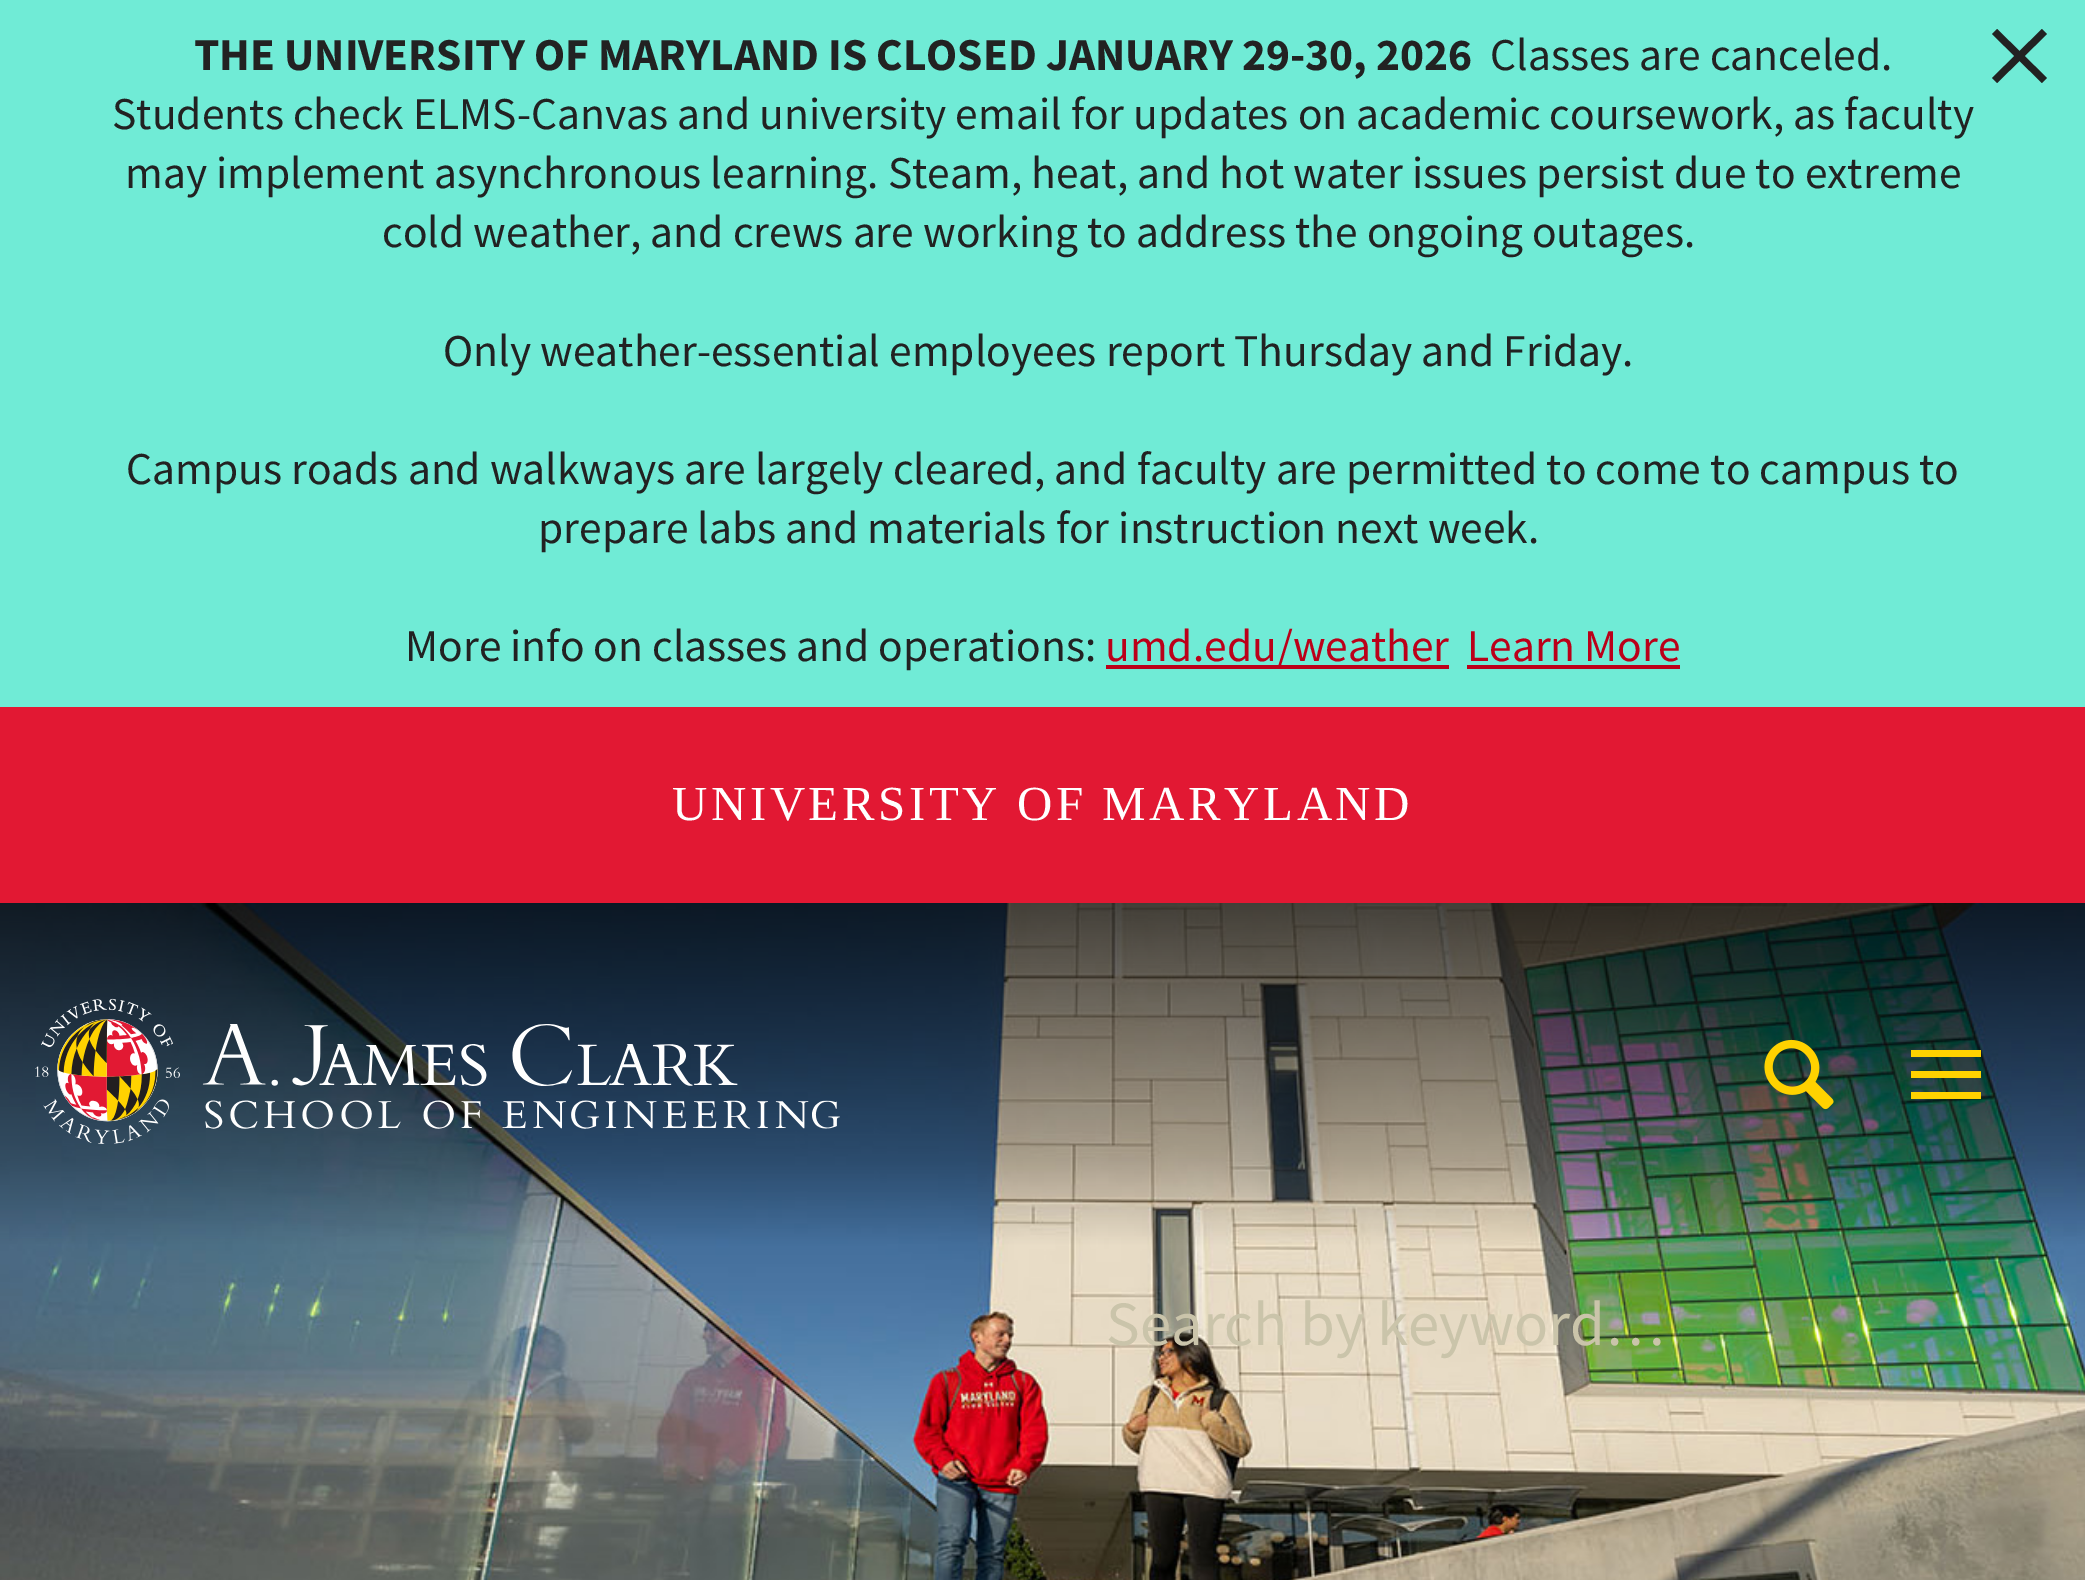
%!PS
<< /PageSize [2085 1580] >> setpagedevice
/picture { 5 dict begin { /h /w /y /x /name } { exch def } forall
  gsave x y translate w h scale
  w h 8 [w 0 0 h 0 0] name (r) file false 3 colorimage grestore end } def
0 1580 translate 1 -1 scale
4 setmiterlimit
1 setgray
0 0 2085 1580 rectfill
0.439 0.922 0.839 setrgbcolor
0 0 2085 707 rectfill
/SourceSansPro-Bold [45.5 0 0 -45.5 0 0] selectfont
0.133 setgray
194 70 moveto (THE UNIVERSITY OF MARYLAND IS CLOSED JANUARY 29-30, 2026) show
/SourceSansPro-Regular [45.5 0 0 -45.5 0 0] selectfont
1490 70 moveto (Classes are canceled.) show
newpath 2047 78 moveto 2042 83 lineto 1992 34 lineto 1997 29 lineto closepath fill
newpath 2042 29 moveto 2047 34 lineto 1997 83 lineto 1992 78 lineto closepath fill
112 129 moveto (Students check ELMS-Canvas and university email for updates on academic coursework, as faculty) show
125 188 moveto (may implement asynchronous learning. Steam, heat, and hot water issues persist due to extreme) show
382 247 moveto (cold weather, and crews are working to address the ongoing outages.) show
443 366 moveto (Only weather-essential employees report Thursday and Friday.) show
126 484 moveto (Campus roads and walkways are largely cleared, and faculty are permitted to come to campus to) show
538 543 moveto (prepare labs and materials for instruction next week.) show
405 661 moveto (More info on classes and operations:) show
0.733 0 0.098 setrgbcolor
1106 665 343 4 rectfill
1105 661 moveto (umd.edu/weather) show
1467 661 moveto (Learn More) show
1467 665 213 4 rectfill
0.886 0.094 0.2 setrgbcolor
0 707 2085 196 rectfill
/LiberationSerif-Regular [49 0 0 -49 0 0] selectfont
1 setgray
672 820 moveto 3.5 0 (UNIVERSITY OF MARYLAND) ashow
(img1.rgb) 0 903 2085 677 picture
(img2.rgb) 35 998 805 146 picture
(img3.rgb) 1764 1039 70 71 picture
1 0.824 0 setrgbcolor
1911 1050 70 7 rectfill
1911 1092 70 7 rectfill
1911 1071 70 7 rectfill
/SourceSansPro-Regular [63 0 0 -63 0 0] selectfont
0.792 0.769 0.667 setrgbcolor
1106 1345 moveto (Search by keyword…) show
showpage
